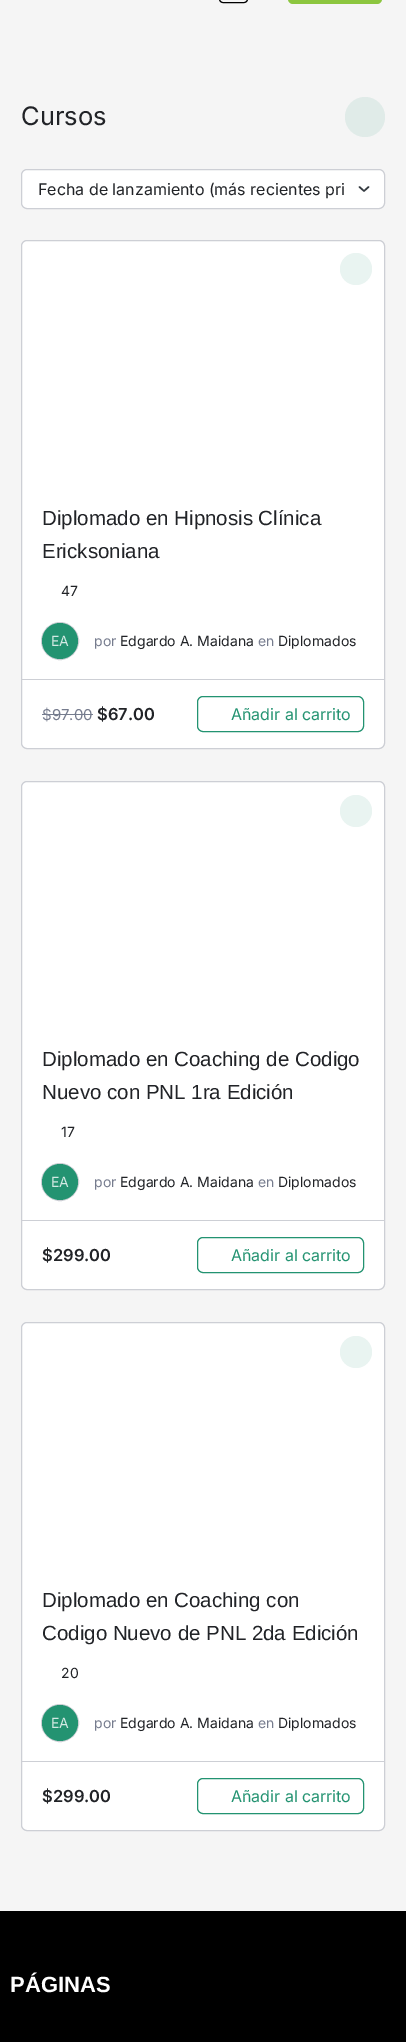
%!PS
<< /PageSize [406 2042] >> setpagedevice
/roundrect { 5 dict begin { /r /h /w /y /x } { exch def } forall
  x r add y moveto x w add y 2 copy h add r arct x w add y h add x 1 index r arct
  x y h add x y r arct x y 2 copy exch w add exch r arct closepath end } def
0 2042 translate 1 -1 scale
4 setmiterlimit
0.961 setgray
0 0 406 2042 rectfill
0 setgray
newpath 219.5 -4.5 moveto 247.5 -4.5 lineto 247.5 -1 lineto 247.5 1 246 2.5 244 2.5 curveto 223 2.5 lineto 221 2.5 219.5 1 219.5 -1 curveto closepath stroke
0.549 0.776 0.247 setrgbcolor
288 -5 94 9 5 roundrect fill
/Inter-Regular [25.5 0 0 -25.5 0 0] selectfont
0.129 0.137 0.153 setrgbcolor
21 125 moveto (Cursos) show
0.878 0.922 0.91 setrgbcolor
newpath 365 117 20 0 360 arc closepath fill
1 setgray
21 169 364 40 6 roundrect fill
0.204 0.227 0.251 setrgbcolor
1.5 setlinewidth
1 setlinecap
1 setlinejoin
newpath 359.5 187 moveto 364 191 lineto 368.5 187 lineto stroke
0.804 0.812 0.835 setrgbcolor
1 setlinewidth
0 setlinecap
0 setlinejoin
21.5 169.5 363 39 5.5 roundrect stroke
/Inter-Regular [16 0 0 -16 0 0] selectfont
0.129 0.137 0.153 setrgbcolor
38 195 moveto (Fecha de lanzamiento \(más recientes pri) show
1 setgray
21.5 240.5 363 508 5.5 roundrect gsave fill grestore
0.804 0.812 0.835 setrgbcolor
stroke
0.914 0.957 0.945 setrgbcolor
newpath 356 269 16 0 360 arc closepath fill
/LiberationSans-Regular [20.5 0 0 -20.5 0 0] selectfont
0.129 0.137 0.153 setrgbcolor
42 525 moveto (Diplomado en Hipnosis Clínica) show
42 558 moveto (Ericksoniana) show
/Inter-Regular [14 0 0 -14 0 0] selectfont
61 596 moveto (47) show
0.804 0.812 0.835 setrgbcolor
newpath 60 641 18.5 0 360 arc closepath stroke
0.137 0.576 0.443 setrgbcolor
newpath 60 641 18 0 360 arc closepath fill
0.827 0.914 0.89 setrgbcolor
51 646 moveto (EA) show
0.463 0.486 0.557 setrgbcolor
94 646 moveto (por) show
0.129 0.137 0.153 setrgbcolor
120 646 moveto (Edgardo A. Maidana) show
0.463 0.486 0.557 setrgbcolor
258 646 moveto (en) show
0.129 0.137 0.153 setrgbcolor
278 646 moveto (Diplomados) show
0.804 0.812 0.835 setrgbcolor
22 679 362 1 rectfill
/Inter-Regular [15 0 0 -15 0 0] selectfont
0.463 0.486 0.557 setrgbcolor
42 720 moveto ($97.00) show
0.459 0.486 0.557 setrgbcolor
42 714 51 1 rectfill
/Inter-SemiBold [16.5 0 0 -16.5 0 0] selectfont
0.129 0.137 0.153 setrgbcolor
97 720 moveto ($67.00) show
0.137 0.576 0.443 setrgbcolor
197.5 696.5 166 35 5.5 roundrect stroke
/Inter-Regular [16 0 0 -16 0 0] selectfont
231 720 moveto (Añadir al carrito) show
1 setgray
21.5 781.5 363 508 5.5 roundrect gsave fill grestore
0.804 0.812 0.835 setrgbcolor
stroke
0.914 0.957 0.945 setrgbcolor
newpath 356 811 16 0 360 arc closepath fill
/LiberationSans-Regular [20.5 0 0 -20.5 0 0] selectfont
0.129 0.137 0.153 setrgbcolor
42 1066 moveto (Diplomado en Coaching de Codigo) show
42 1099 moveto (Nuevo con PNL 1ra Edición) show
/Inter-Regular [14 0 0 -14 0 0] selectfont
61 1137 moveto (17) show
0.804 0.812 0.835 setrgbcolor
newpath 60 1182 18.5 0 360 arc closepath stroke
0.137 0.576 0.443 setrgbcolor
newpath 60 1182 18 0 360 arc closepath fill
0.827 0.914 0.89 setrgbcolor
51 1187 moveto (EA) show
0.463 0.486 0.557 setrgbcolor
94 1187 moveto (por) show
0.129 0.137 0.153 setrgbcolor
120 1187 moveto (Edgardo A. Maidana) show
0.463 0.486 0.557 setrgbcolor
258 1187 moveto (en) show
0.129 0.137 0.153 setrgbcolor
278 1187 moveto (Diplomados) show
0.804 0.812 0.835 setrgbcolor
22 1220 362 1 rectfill
/Inter-SemiBold [16.5 0 0 -16.5 0 0] selectfont
0.129 0.137 0.153 setrgbcolor
42 1261 moveto ($299.00) show
0.137 0.576 0.443 setrgbcolor
197.5 1237.5 166 35 5.5 roundrect stroke
/Inter-Regular [16 0 0 -16 0 0] selectfont
231 1261 moveto (Añadir al carrito) show
1 setgray
21.5 1322.5 363 508 5.5 roundrect gsave fill grestore
0.804 0.812 0.835 setrgbcolor
stroke
0.914 0.957 0.945 setrgbcolor
newpath 356 1352 16 0 360 arc closepath fill
/LiberationSans-Regular [20.5 0 0 -20.5 0 0] selectfont
0.129 0.137 0.153 setrgbcolor
42 1607 moveto (Diplomado en Coaching con) show
42 1640 moveto (Codigo Nuevo de PNL 2da Edición) show
/Inter-Regular [14 0 0 -14 0 0] selectfont
61 1678 moveto (20) show
0.804 0.812 0.835 setrgbcolor
newpath 60 1723 18.5 0 360 arc closepath stroke
0.137 0.576 0.443 setrgbcolor
newpath 60 1723 18 0 360 arc closepath fill
0.827 0.914 0.89 setrgbcolor
51 1728 moveto (EA) show
0.463 0.486 0.557 setrgbcolor
94 1728 moveto (por) show
0.129 0.137 0.153 setrgbcolor
120 1728 moveto (Edgardo A. Maidana) show
0.463 0.486 0.557 setrgbcolor
258 1728 moveto (en) show
0.129 0.137 0.153 setrgbcolor
278 1728 moveto (Diplomados) show
0.804 0.812 0.835 setrgbcolor
22 1761 362 1 rectfill
/Inter-SemiBold [16.5 0 0 -16.5 0 0] selectfont
0.129 0.137 0.153 setrgbcolor
42 1802 moveto ($299.00) show
0.137 0.576 0.443 setrgbcolor
197.5 1778.5 166 35 5.5 roundrect stroke
/Inter-Regular [16 0 0 -16 0 0] selectfont
231 1802 moveto (Añadir al carrito) show
0 setgray
0 1911 406 131 rectfill
/LiberationSans-Bold [22 0 0 -22 0 0] selectfont
1 setgray
10 1992 moveto (PÁGINAS) show
showpage
